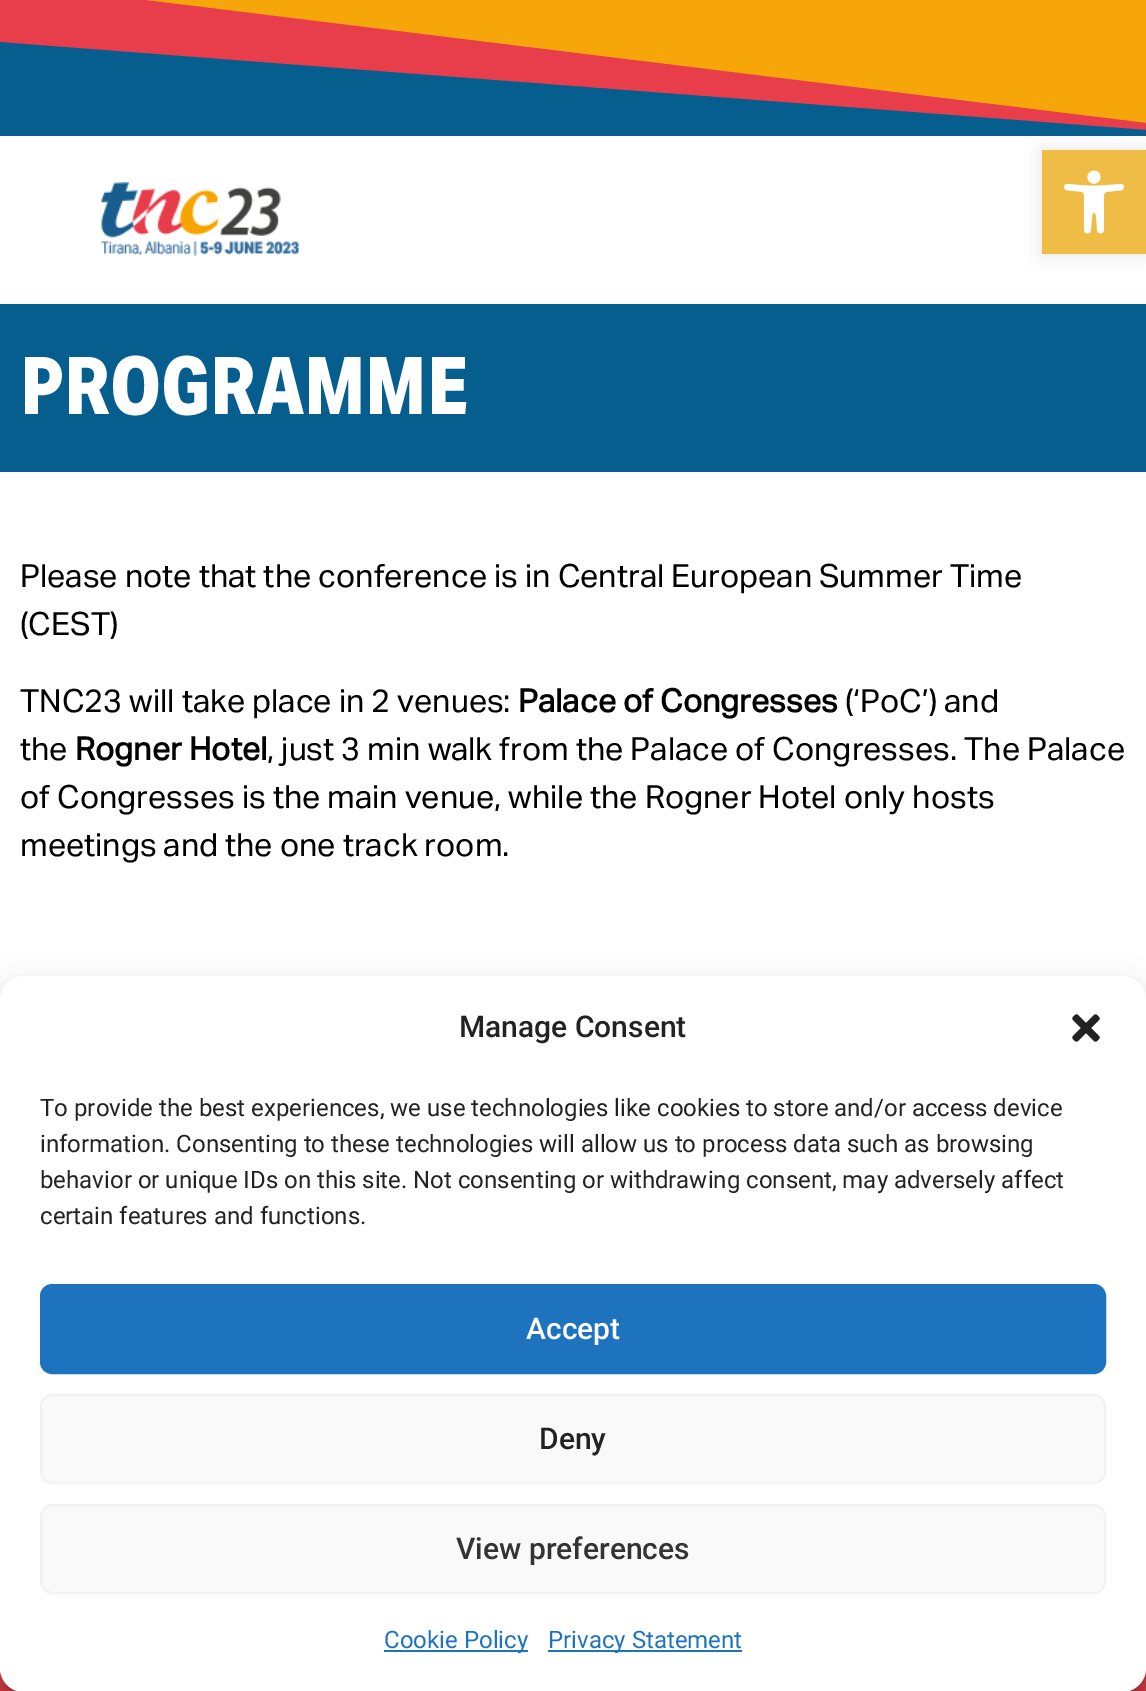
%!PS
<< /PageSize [1146 1691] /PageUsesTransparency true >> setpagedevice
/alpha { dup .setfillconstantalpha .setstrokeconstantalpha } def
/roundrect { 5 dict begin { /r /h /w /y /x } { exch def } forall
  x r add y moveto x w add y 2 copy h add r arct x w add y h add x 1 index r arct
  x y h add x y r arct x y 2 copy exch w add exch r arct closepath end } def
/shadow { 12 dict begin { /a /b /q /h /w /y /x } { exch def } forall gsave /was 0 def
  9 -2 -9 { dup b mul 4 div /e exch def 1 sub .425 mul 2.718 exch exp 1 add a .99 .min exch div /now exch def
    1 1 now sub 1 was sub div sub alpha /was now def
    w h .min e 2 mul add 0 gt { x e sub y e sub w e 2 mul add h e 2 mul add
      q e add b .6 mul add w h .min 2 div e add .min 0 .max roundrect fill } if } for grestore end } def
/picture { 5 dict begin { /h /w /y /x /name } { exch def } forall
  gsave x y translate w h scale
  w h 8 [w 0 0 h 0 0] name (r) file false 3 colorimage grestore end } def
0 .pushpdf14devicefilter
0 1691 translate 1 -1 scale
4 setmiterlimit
1 setgray
0 0 1146 1691 rectfill
0.969 0.651 0.035 setrgbcolor
145 0 1001 123 rectfill
0.91 0.243 0.298 setrgbcolor
newpath 1146 123 moveto 1146 132 lineto -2 132 lineto -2 -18 lineto closepath fill
0.024 0.369 0.561 setrgbcolor
newpath 1146 130 moveto 1146 136 lineto -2 136 lineto -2 42 lineto closepath fill
(img1.rgb) 101 182 198 74 picture
0 setgray
1042 150 104 104 0 10 0.1 shadow
0.937 0.737 0.271 setrgbcolor
1042 150 104 104 rectfill
(img2.rgb) 1064 170 61 64 picture
0.024 0.369 0.561 setrgbcolor
0 304 1146 168 rectfill
/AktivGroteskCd-Bold [80 0 0 -80 0 0] selectfont
1 setgray
20 414 moveto (PROGRAMME) show
/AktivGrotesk-Regular [32 0 0 -32 0 0] selectfont
0 setgray
20 587 moveto (Please note that the conference is in Central European Summer Time) show
20 635 moveto (\(CEST\)) show
20 712 moveto (TNC23 will take place in 2 venues:) show
/AktivGrotesk-Bold [32 0 0 -32 0 0] selectfont
518 712 moveto (Palace of Congresses) show
/AktivGrotesk-Regular [32 0 0 -32 0 0] selectfont
845 712 moveto (\(‘PoC’\) and) show
20 760 moveto (the) show
/AktivGrotesk-Bold [32 0 0 -32 0 0] selectfont
75 760 moveto (Rogner Hotel) show
/AktivGrotesk-Regular [32 0 0 -32 0 0] selectfont
267 760 moveto (, just 3 min walk from the Palace of Congresses. The Palace) show
20 808 moveto (of Congresses is the main venue, while the Rogner Hotel only hosts) show
20 856 moveto (meetings and the one track room.) show
0.906 0.243 0.294 setrgbcolor
0 1668 1146 23 rectfill
0 setgray
0 988 1146 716 24 6 0.23 shadow
0 996 1146 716 24 20 0.19 shadow
1 setgray
0 976 1146 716 24 roundrect fill
/Roboto-Medium [30 0 0 -30 0 0] selectfont
0.133 setgray
459 1037 moveto (Manage Consent) show
(img3.rgb) 1072 1014 28 28 picture
/Roboto-Regular [24 0 0 -24 0 0] selectfont
40 1116 moveto (To provide the best experiences, we use technologies like cookies to store and/or access device) show
40 1152 moveto (information. Consenting to these technologies will allow us to process data such as browsing) show
40 1188 moveto (behavior or unique IDs on this site. Not consenting or withdrawing consent, may adversely affect) show
40 1224 moveto (certain features and functions.) show
0.118 0.451 0.745 setrgbcolor
41 1285 1064 88 11 roundrect gsave fill grestore
2 setlinewidth
stroke
/Roboto-Medium [30 0 0 -30 0 0] selectfont
1 setgray
526 1339 moveto (Accept) show
0.976 setgray
41 1395 1064 88 11 roundrect gsave fill grestore
0.949 setgray
stroke
0.133 setgray
539 1449 moveto (Deny) show
0.976 setgray
41 1505 1064 88 11 roundrect gsave fill grestore
0.949 setgray
stroke
0.2 setgray
456 1559 moveto (View preferences) show
0.118 0.451 0.745 setrgbcolor
384 1650 144 2 rectfill
/Roboto-Regular [24 0 0 -24 0 0] selectfont
384 1648 moveto (Cookie Policy) show
548 1650 194 2 rectfill
548 1648 moveto (Privacy Statement) show
.poppdf14devicefilter showpage
